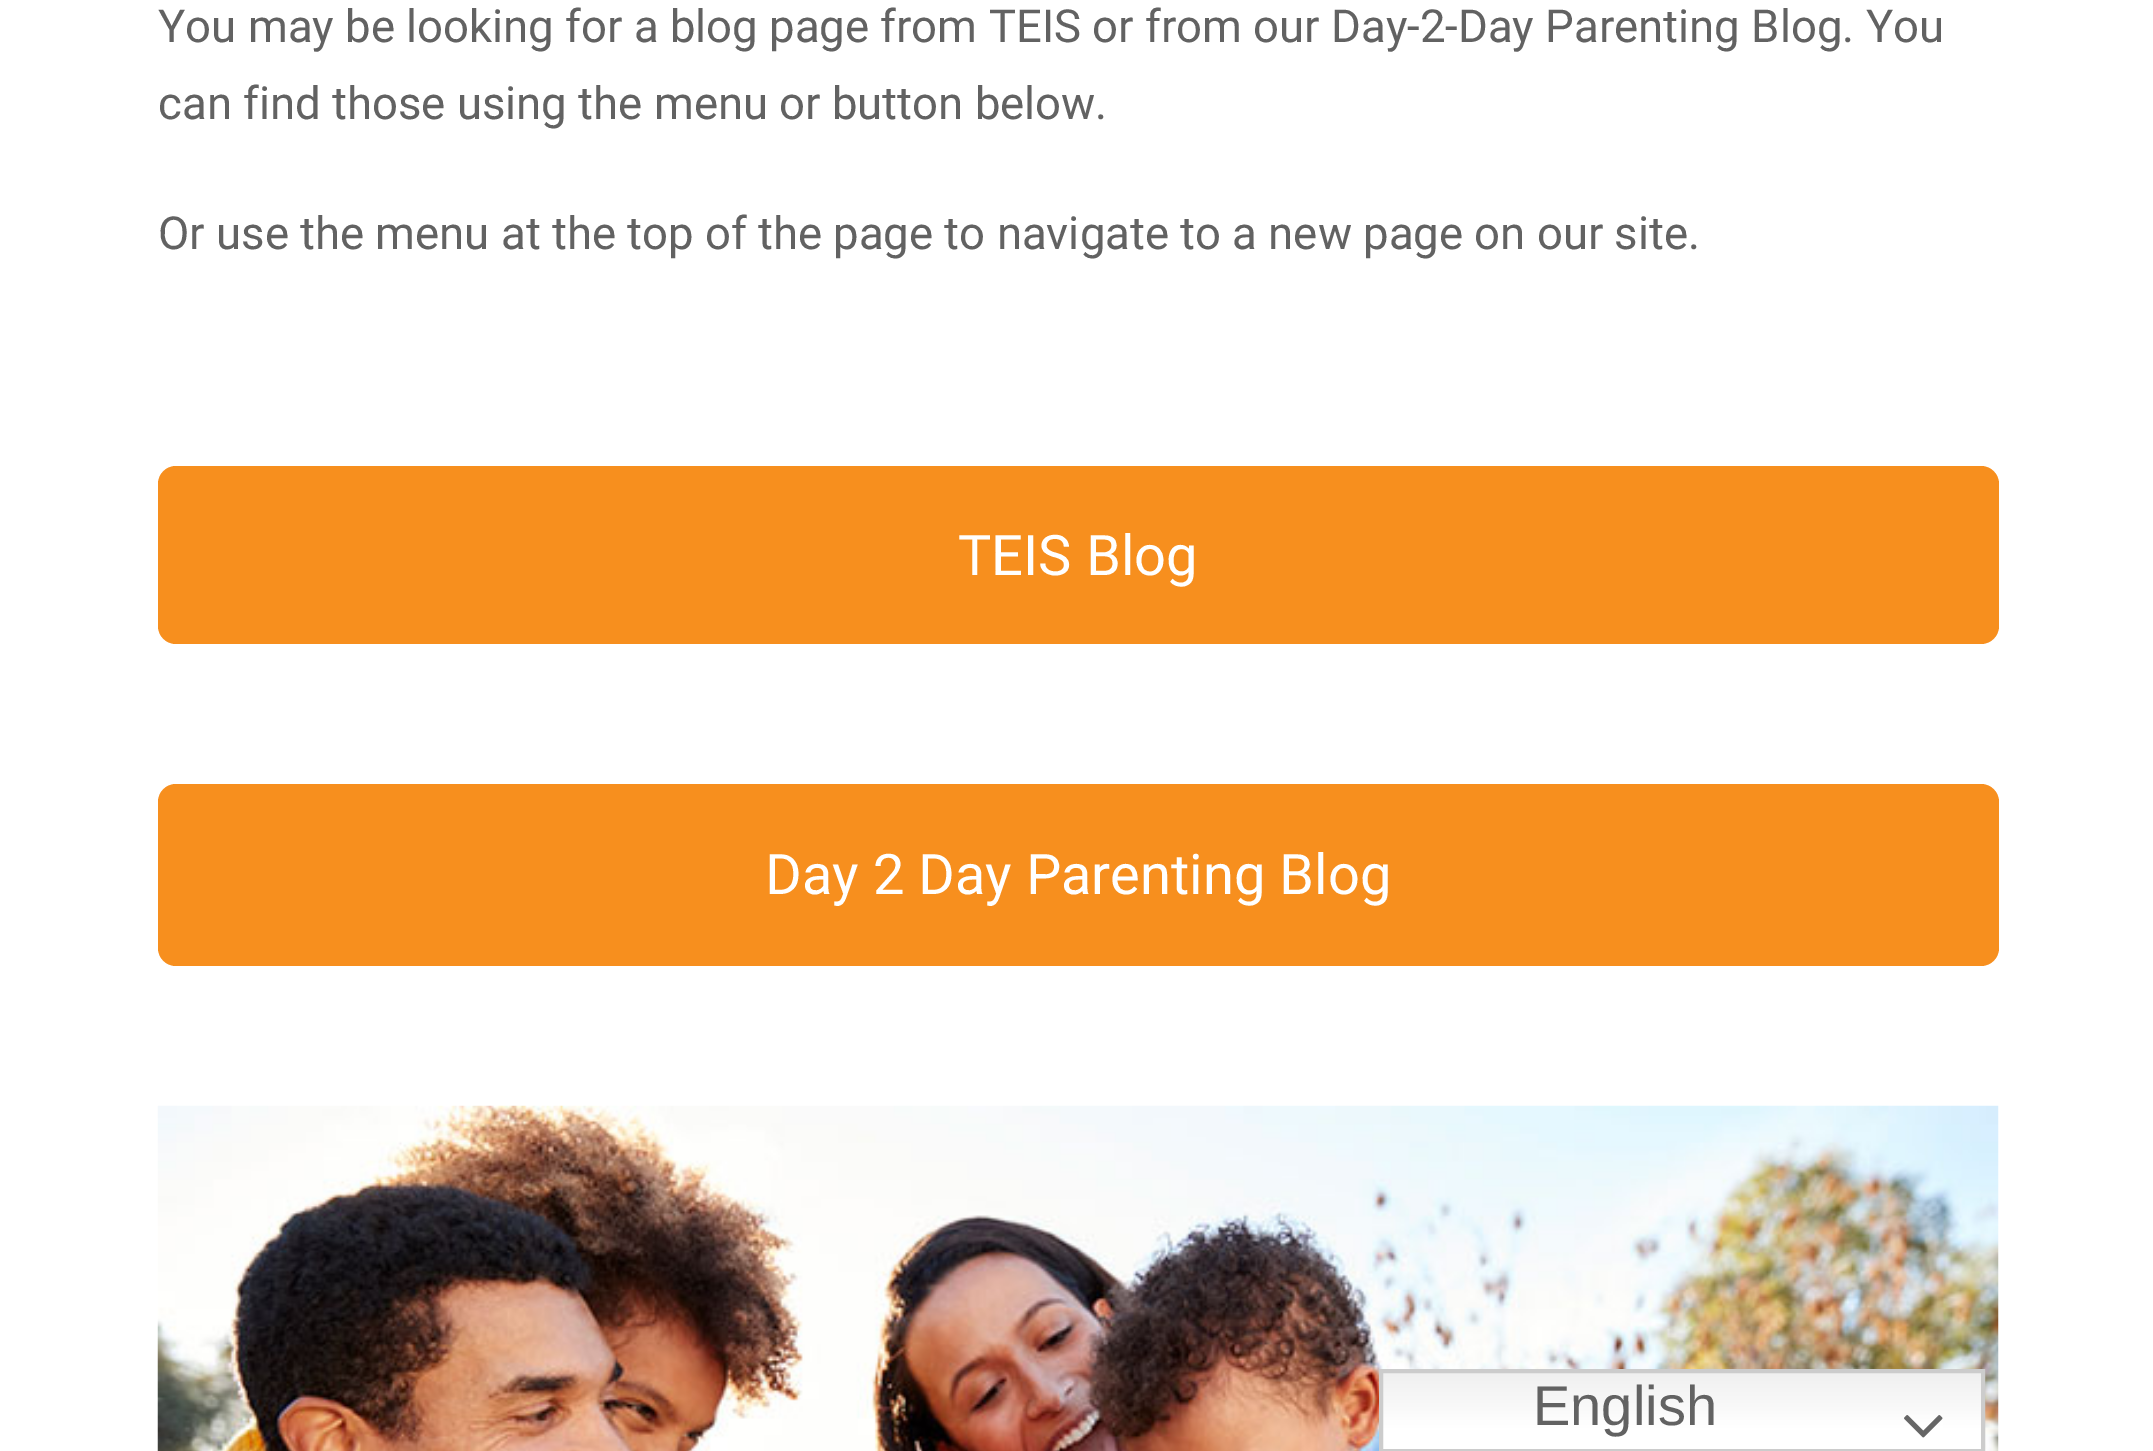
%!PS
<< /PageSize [2153 1451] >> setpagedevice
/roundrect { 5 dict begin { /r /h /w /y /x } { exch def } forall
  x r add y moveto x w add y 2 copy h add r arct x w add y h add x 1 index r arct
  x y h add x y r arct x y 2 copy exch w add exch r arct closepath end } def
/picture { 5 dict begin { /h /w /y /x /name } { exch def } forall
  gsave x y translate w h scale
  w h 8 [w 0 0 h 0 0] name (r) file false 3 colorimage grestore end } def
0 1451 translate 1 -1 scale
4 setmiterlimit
1 setgray
0 0 2153 1451 rectfill
/Roboto-Regular [45.5 0 0 -45.5 0 0] selectfont
0.384 setgray
158 42 moveto (You may be looking for a blog page from TEIS or from our Day-2-Day Parenting Blog. You) show
158 119 moveto (can find those using the menu or button below.) show
158 249 moveto (Or use the menu at the top of the page to navigate to a new page on our site.) show
0.969 0.561 0.118 setrgbcolor
158 466 1841 178 18 roundrect fill
/Roboto-Regular [56 0 0 -56 0 0] selectfont
1 setgray
958 575 moveto (TEIS Blog) show
0.969 0.561 0.118 setrgbcolor
158 784 1841 182 18 roundrect fill
1 setgray
765 894 moveto (Day 2 Day Parenting Blog) show
(img1.rgb) 157 1105 1842 346 picture
gsave newpath 1383 1373 moveto 1981 1373 lineto 1981 1449 lineto 1383 1449 lineto closepath clip newpath
<< /ShadingType 2 /ColorSpace /DeviceRGB /Coords [1682 1369 1682 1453] /Extend [true true] /Function << /FunctionType 3 /Domain [0 1] /Functions [<< /FunctionType 2 /Domain [0 1] /C0 [0.937 0.937 0.937] /C1 [1 1 1] /N 1 >> << /FunctionType 2 /Domain [0 1] /C0 [1 1 1] /C1 [1 1 1] /N 1 >>] /Bounds [0.7] /Encode [0 1 0 1] >> >> shfill grestore
0.8 setgray
4 setlinewidth
1381 1371 602 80 rectstroke
/LiberationSans-Regular [56 0 0 -56 0 0] selectfont
0.384 setgray
1533 1425 moveto (English) show
(img2.rgb) 1904 1415 39 23 picture
showpage
